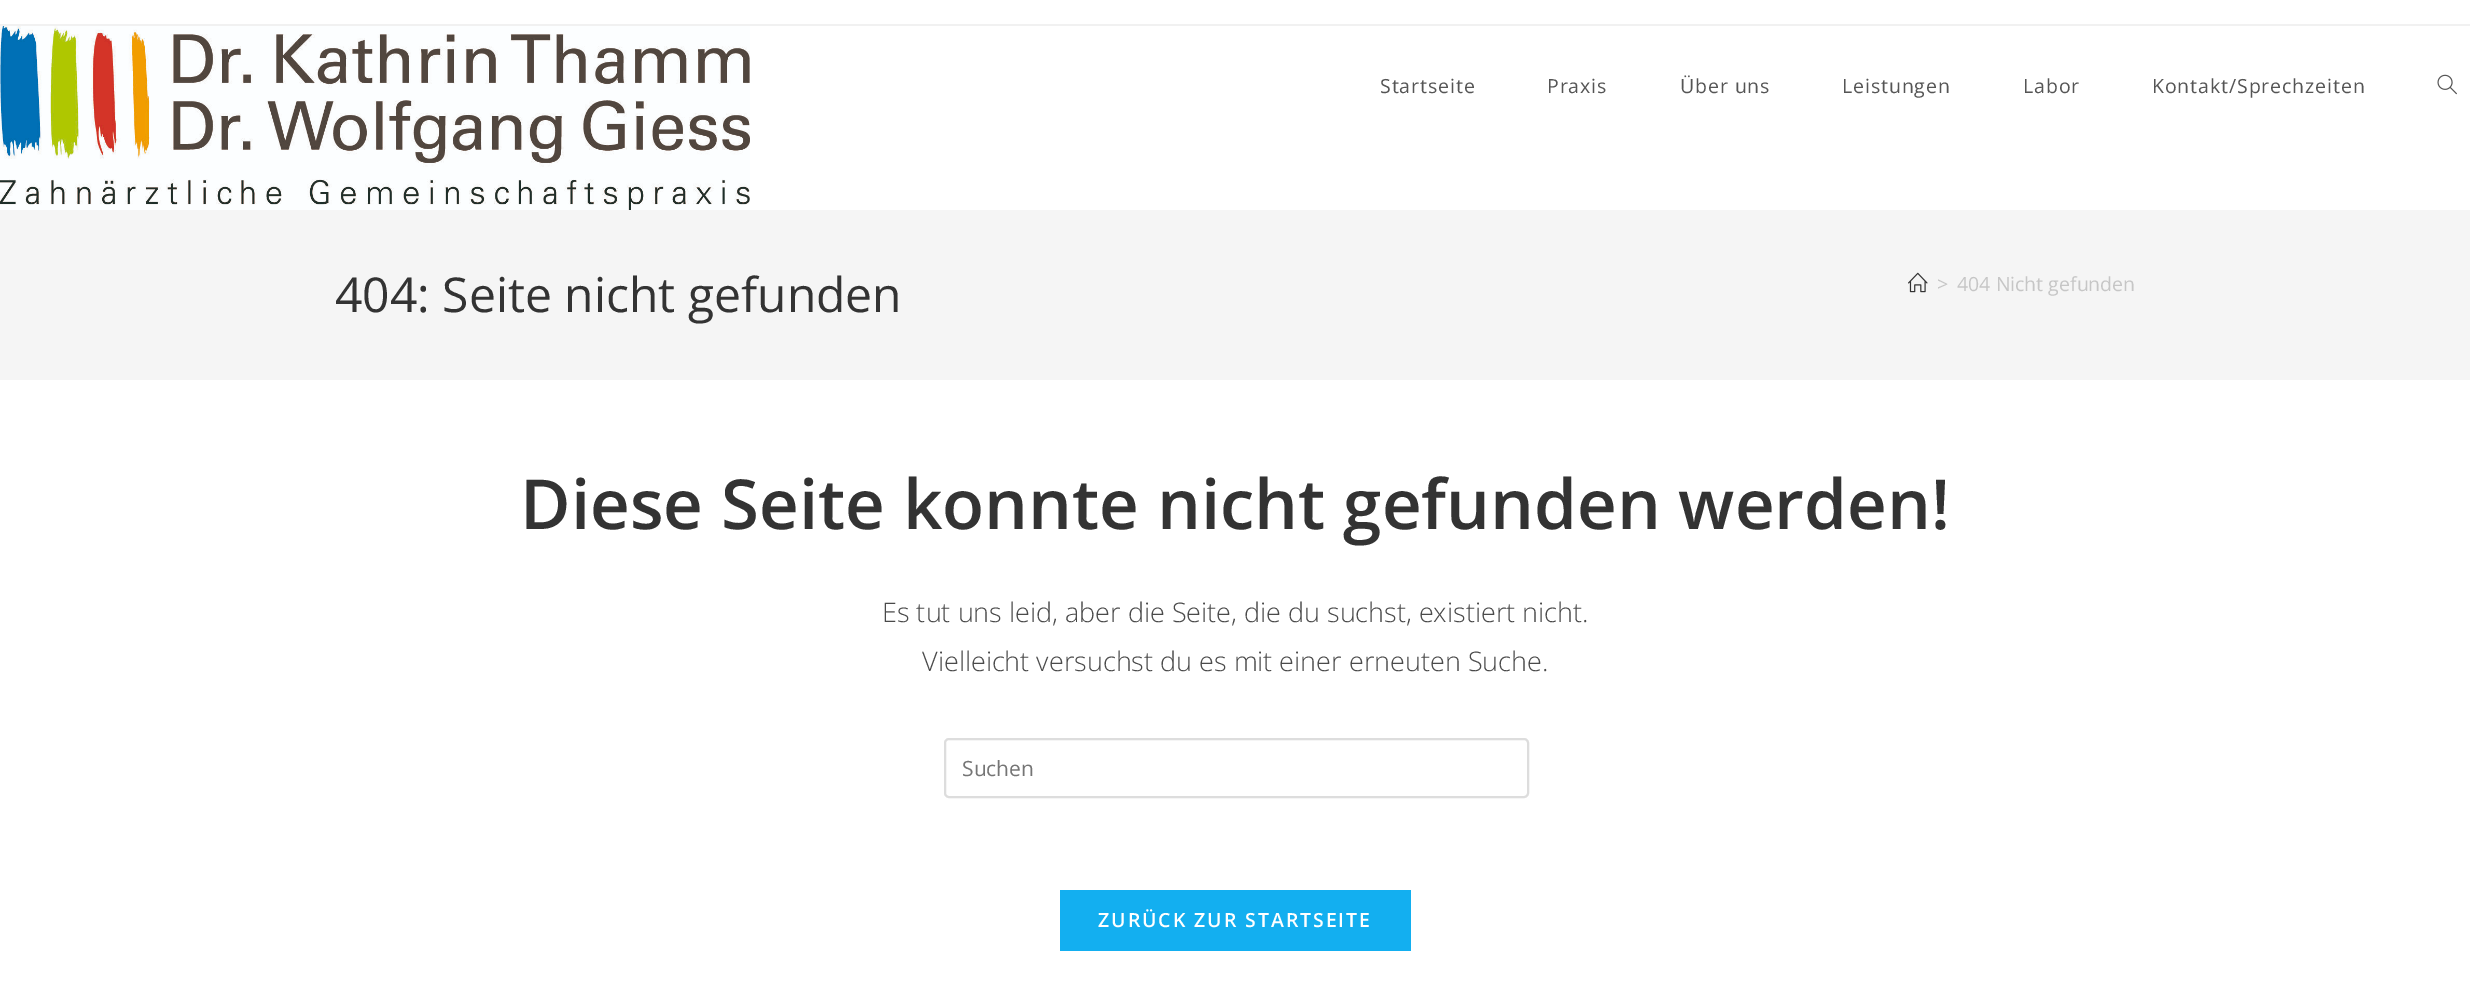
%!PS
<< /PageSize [2470 985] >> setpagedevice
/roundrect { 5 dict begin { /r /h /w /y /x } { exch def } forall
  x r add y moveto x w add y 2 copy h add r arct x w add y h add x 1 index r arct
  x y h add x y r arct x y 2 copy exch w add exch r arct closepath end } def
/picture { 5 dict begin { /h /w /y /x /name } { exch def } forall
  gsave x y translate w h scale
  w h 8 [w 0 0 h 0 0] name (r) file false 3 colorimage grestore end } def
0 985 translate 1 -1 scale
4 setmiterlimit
1 setgray
0 0 2470 985 rectfill
0.945 setgray
0 24 2470 2 rectfill
(img1.rgb) 0 26 750 184 picture
/OpenSans-Regular [19.5 0 0 -19.5 0 0] selectfont
0.333 setgray
1380 93 moveto 0.9 0 (Startseite) ashow
1547 93 moveto 0.9 0 (Praxis) ashow
1680 93 moveto 0.9 0 (Über uns) ashow
1842 93 moveto 0.9 0 (Leistungen) ashow
2023 93 moveto 0.9 0 (Labor) ashow
2152 93 moveto 0.9 0 (Kontakt/Sprechzeiten) ashow
(img2.rgb) 2437 74 20 21 picture
0.961 setgray
0 210 2470 170 rectfill
/OpenSans-Regular [48 0 0 -48 0 0] selectfont
0.2 setgray
335 312 moveto (404: Seite nicht gefunden) show
(img3.rgb) 1908 272 20 21 picture
/OpenSans-Regular [19.5 0 0 -19.5 0 0] selectfont
0.776 setgray
1937 291 moveto (>) show
1957 291 moveto (404 Nicht gefunden) show
/OpenSans-SemiBold [69 0 0 -69 0 0] selectfont
0.2 setgray
520 529 moveto (Diese Seite konnte nicht gefunden werden!) show
/OpenSans-Light [27 0 0 -27 0 0] selectfont
0.29 setgray
882 622 moveto (Es tut uns leid, aber die Seite, die du suchst, existiert nicht.) show
922 671 moveto (Vielleicht versuchst du es mit einer erneuten Suche.) show
0.867 setgray
2 setlinewidth
945 739 583 58 4 roundrect stroke
/OpenSans-Regular [21 0 0 -21 0 0] selectfont
0.459 setgray
962 776 moveto (Suchen) show
0.075 0.686 0.941 setrgbcolor
1060 890 351 61 rectfill
/OpenSans-SemiBold [19.5 0 0 -19.5 0 0] selectfont
1 setgray
1098 927 moveto 1.95 0 (ZURÜCK ZUR STARTSEITE) ashow
showpage
